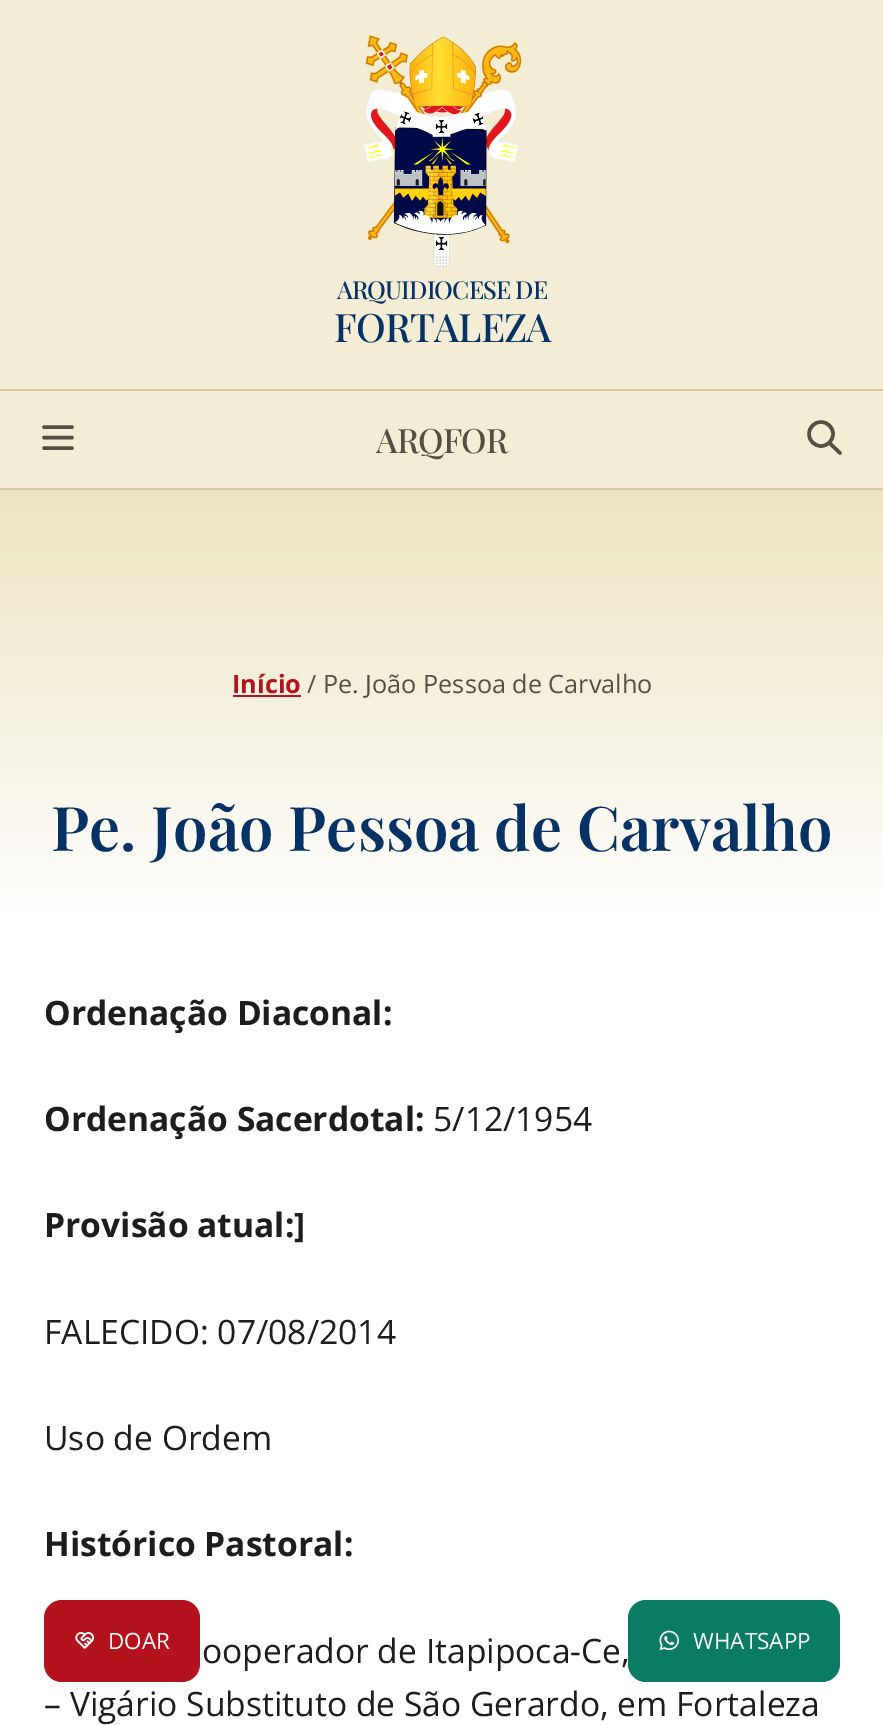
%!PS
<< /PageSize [883 1725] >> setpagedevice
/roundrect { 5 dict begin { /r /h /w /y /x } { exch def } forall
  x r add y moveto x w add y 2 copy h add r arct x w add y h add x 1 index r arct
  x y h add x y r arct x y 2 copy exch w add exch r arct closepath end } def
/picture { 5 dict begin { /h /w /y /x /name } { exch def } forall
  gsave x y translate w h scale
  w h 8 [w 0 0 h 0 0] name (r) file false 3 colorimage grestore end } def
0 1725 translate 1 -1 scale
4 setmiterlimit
1 setgray
0 0 883 1725 rectfill
0.949 0.929 0.831 setrgbcolor
0 0 883 389 rectfill
(img1.rgb) 364 35 158 233 picture
/PlayfairDisplay-Medium [24.75 0 0 -24.75 0 0] selectfont
0.024 0.196 0.396 setrgbcolor
337 299 moveto -0.9 0 (ARQUIDIOCESE DE) ashow
/PlayfairDisplay-Medium [39.25 0 0 -39.25 0 0] selectfont
334 342 moveto -0.9 0 (FORTALEZA) ashow
0.949 0.929 0.831 setrgbcolor
0 391 883 97 rectfill
0.863 0.773 0.624 setrgbcolor
0 389 883 2 rectfill
0 488 883 2 rectfill
0.325 0.314 0.263 setrgbcolor
3.5 setlinewidth
1 setlinecap
1 setlinejoin
newpath 44 427 moveto 72 427 lineto 44 437.5 moveto 72 437.5 lineto 44 448 moveto 72 448 lineto stroke
/PlayfairDisplay-Medium [33.6 0 0 -33.6 0 0] selectfont
376 453 moveto -0.9 0 (ARQFOR) ashow
0 setlinecap
0 setlinejoin
newpath 821 434 12 0 360 arc closepath stroke
1 setlinecap
1 setlinejoin
newpath 840 453 moveto 829.5 443 lineto stroke
gsave newpath 0 490 moveto 883 490 lineto 883 911 lineto 0 911 lineto closepath clip newpath
<< /ShadingType 2 /ColorSpace /DeviceRGB /Coords [442 490 442 928] /Extend [true true] /Function << /FunctionType 2 /Domain [0 1] /C0 [0.929 0.894 0.753] /C1 [1 1 1] /N 1 >> >> shfill grestore
/OpenSans-Bold [25.25 0 0 -25.25 0 0] selectfont
0.706 0.075 0.114 setrgbcolor
232 693 moveto (Início) show
233 695 68 2 rectfill
/OpenSans-Regular [25.25 0 0 -25.25 0 0] selectfont
0.325 0.314 0.263 setrgbcolor
307 693 moveto (/ Pe. João Pessoa de Carvalho) show
/PlayfairDisplay-SemiBold [61.6 0 0 -61.6 0 0] selectfont
0.024 0.196 0.396 setrgbcolor
51 851 moveto (Pe. João Pessoa de Carvalho) show
/OpenSans-Bold [33.6 0 0 -33.6 0 0] selectfont
0.114 setgray
44 1025 moveto (Ordenação Diaconal:) show
44 1131 moveto (Ordenação Sacerdotal:) show
/OpenSans-Regular [33.6 0 0 -33.6 0 0] selectfont
433 1131 moveto (5/12/1954) show
/OpenSans-Bold [33.6 0 0 -33.6 0 0] selectfont
44 1237 moveto (Provisão atual:]) show
/OpenSans-Regular [33.6 0 0 -33.6 0 0] selectfont
44 1344 moveto (FALECIDO: 07/08/2014) show
44 1450 moveto (Uso de Ordem) show
/OpenSans-Bold [33.6 0 0 -33.6 0 0] selectfont
44 1556 moveto (Histórico Pastoral:) show
/OpenSans-Regular [33.6 0 0 -33.6 0 0] selectfont
202 1663 moveto (ooperador de Itapipoca-Ce,) show
44 1716 moveto (– Vigário Substituto de São Gerardo, em Fortaleza) show
0.706 0.075 0.114 setrgbcolor
44 1600 156 82 18 roundrect fill
(img2.rgb) 75 1632 19 17 picture
/OpenSans-Regular [22.5 0 0 -22.5 0 0] selectfont
1 setgray
108 1649 moveto (DOAR) show
0.035 0.486 0.388 setrgbcolor
628 1600 212 82 18 roundrect fill
(img3.rgb) 659 1630 20 21 picture
1 setgray
693 1649 moveto (WHATSAPP) show
showpage
